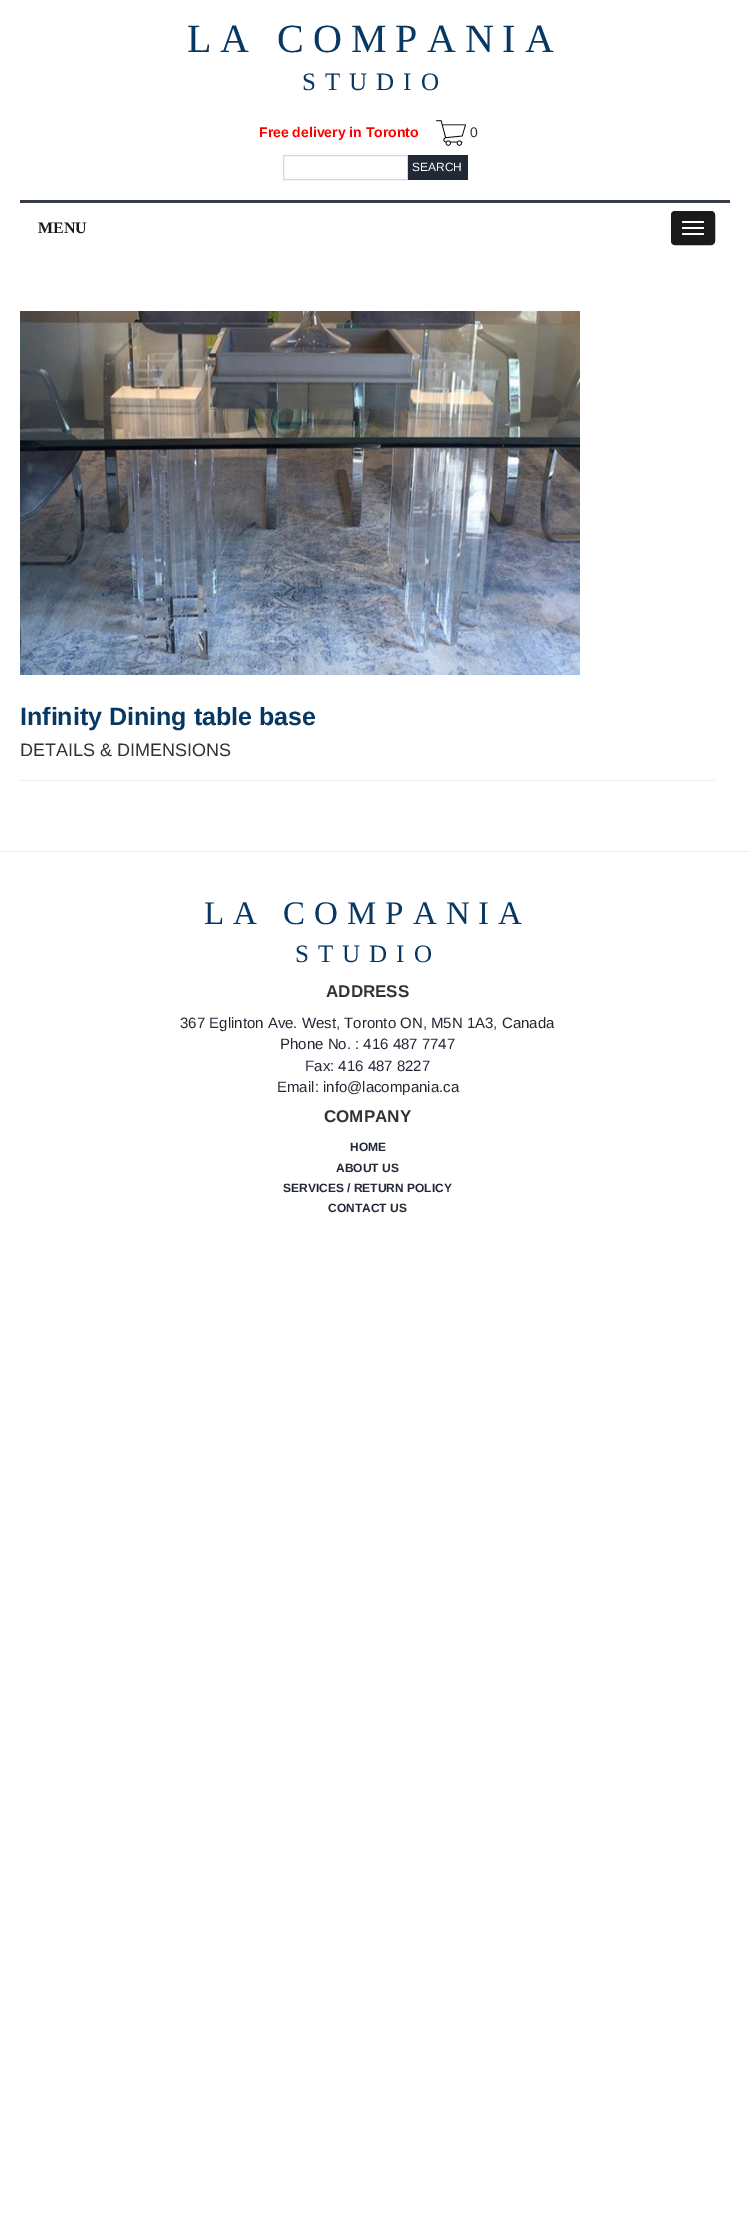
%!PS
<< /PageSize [750 2233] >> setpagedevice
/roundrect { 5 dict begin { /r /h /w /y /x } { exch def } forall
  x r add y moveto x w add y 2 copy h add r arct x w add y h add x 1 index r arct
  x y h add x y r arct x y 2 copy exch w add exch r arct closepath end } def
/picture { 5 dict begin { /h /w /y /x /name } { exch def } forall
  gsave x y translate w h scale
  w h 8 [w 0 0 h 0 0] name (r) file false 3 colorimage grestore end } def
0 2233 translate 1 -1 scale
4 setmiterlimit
1 setgray
0 0 750 2233 rectfill
/LiberationSerif-Regular [40 0 0 -40 0 0] selectfont
0.027 0.216 0.388 setrgbcolor
187 52 moveto 9 0 (LA COMPANIA) ashow
/LiberationSerif-Regular [25 0 0 -25 0 0] selectfont
302 90 moveto 9 0 (STUDIO) ashow
/LiberationSans-Bold [14 0 0 -14 0 0] selectfont
1 0 0 setrgbcolor
259 137 moveto (Free delivery in Toronto) show
(img1.rgb) 436 120 30 26 picture
/LiberationSans-Regular [14 0 0 -14 0 0] selectfont
0.2 setgray
470 137 moveto (0) show
0.847 setgray
283.5 155.5 124 24 rectstroke
0.133 0.157 0.208 setrgbcolor
408 155 60 25 rectfill
/LiberationSans-Regular [12 0 0 -12 0 0] selectfont
1 setgray
412 171 moveto (SEARCH) show
0.22 0.243 0.286 setrgbcolor
20 200 710 3 rectfill
/LiberationSerif-Bold [16 0 0 -16 0 0] selectfont
0.102 setgray
38 233 moveto (MENU) show
671.5 211.5 43 33 3.5 roundrect gsave fill grestore
stroke
1 setgray
682 221 22 2 1 roundrect fill
682 227 22 2 1 roundrect fill
682 233 22 2 1 roundrect fill
(img2.rgb) 20 311 560 364 picture
/LiberationSans-Bold [25 0 0 -25 0 0] selectfont
0.027 0.216 0.388 setrgbcolor
20 725 moveto (Infinity Dining table base) show
/LiberationSans-Regular [18 0 0 -18 0 0] selectfont
0.2 setgray
20 756 moveto (DETAILS & DIMENSIONS) show
0.933 setgray
20 780 695 1 rectfill
0 851 750 1 rectfill
/LiberationSerif-Regular [33 0 0 -33 0 0] selectfont
0.027 0.216 0.388 setrgbcolor
204 924 moveto 9 0 (LA COMPANIA) ashow
/LiberationSerif-Regular [25 0 0 -25 0 0] selectfont
295 962 moveto 9 0 (STUDIO) ashow
/LiberationSans-Bold [17 0 0 -17 0 0] selectfont
0.2 setgray
326 997 moveto (ADDRESS) show
/LiberationSans-Regular [15 0 0 -15 0 0] selectfont
0.133 0.157 0.208 setrgbcolor
180 1028 moveto (367 Eglinton Ave. West, Toronto ON, M5N 1A3, Canada) show
280 1049 moveto (Phone No. : 416 487 7747) show
305 1071 moveto (Fax: 416 487 8227) show
277 1092 moveto (Email: info@lacompania.ca) show
/LiberationSans-Bold [17 0 0 -17 0 0] selectfont
0.2 setgray
324 1122 moveto (COMPANY) show
/LiberationSans-Bold [12 0 0 -12 0 0] selectfont
0.133 0.157 0.208 setrgbcolor
350 1151 moveto (HOME) show
336 1172 moveto (ABOUT US) show
283 1192 moveto (SERVICES / RETURN POLICY) show
328 1212 moveto (CONTACT US) show
showpage
